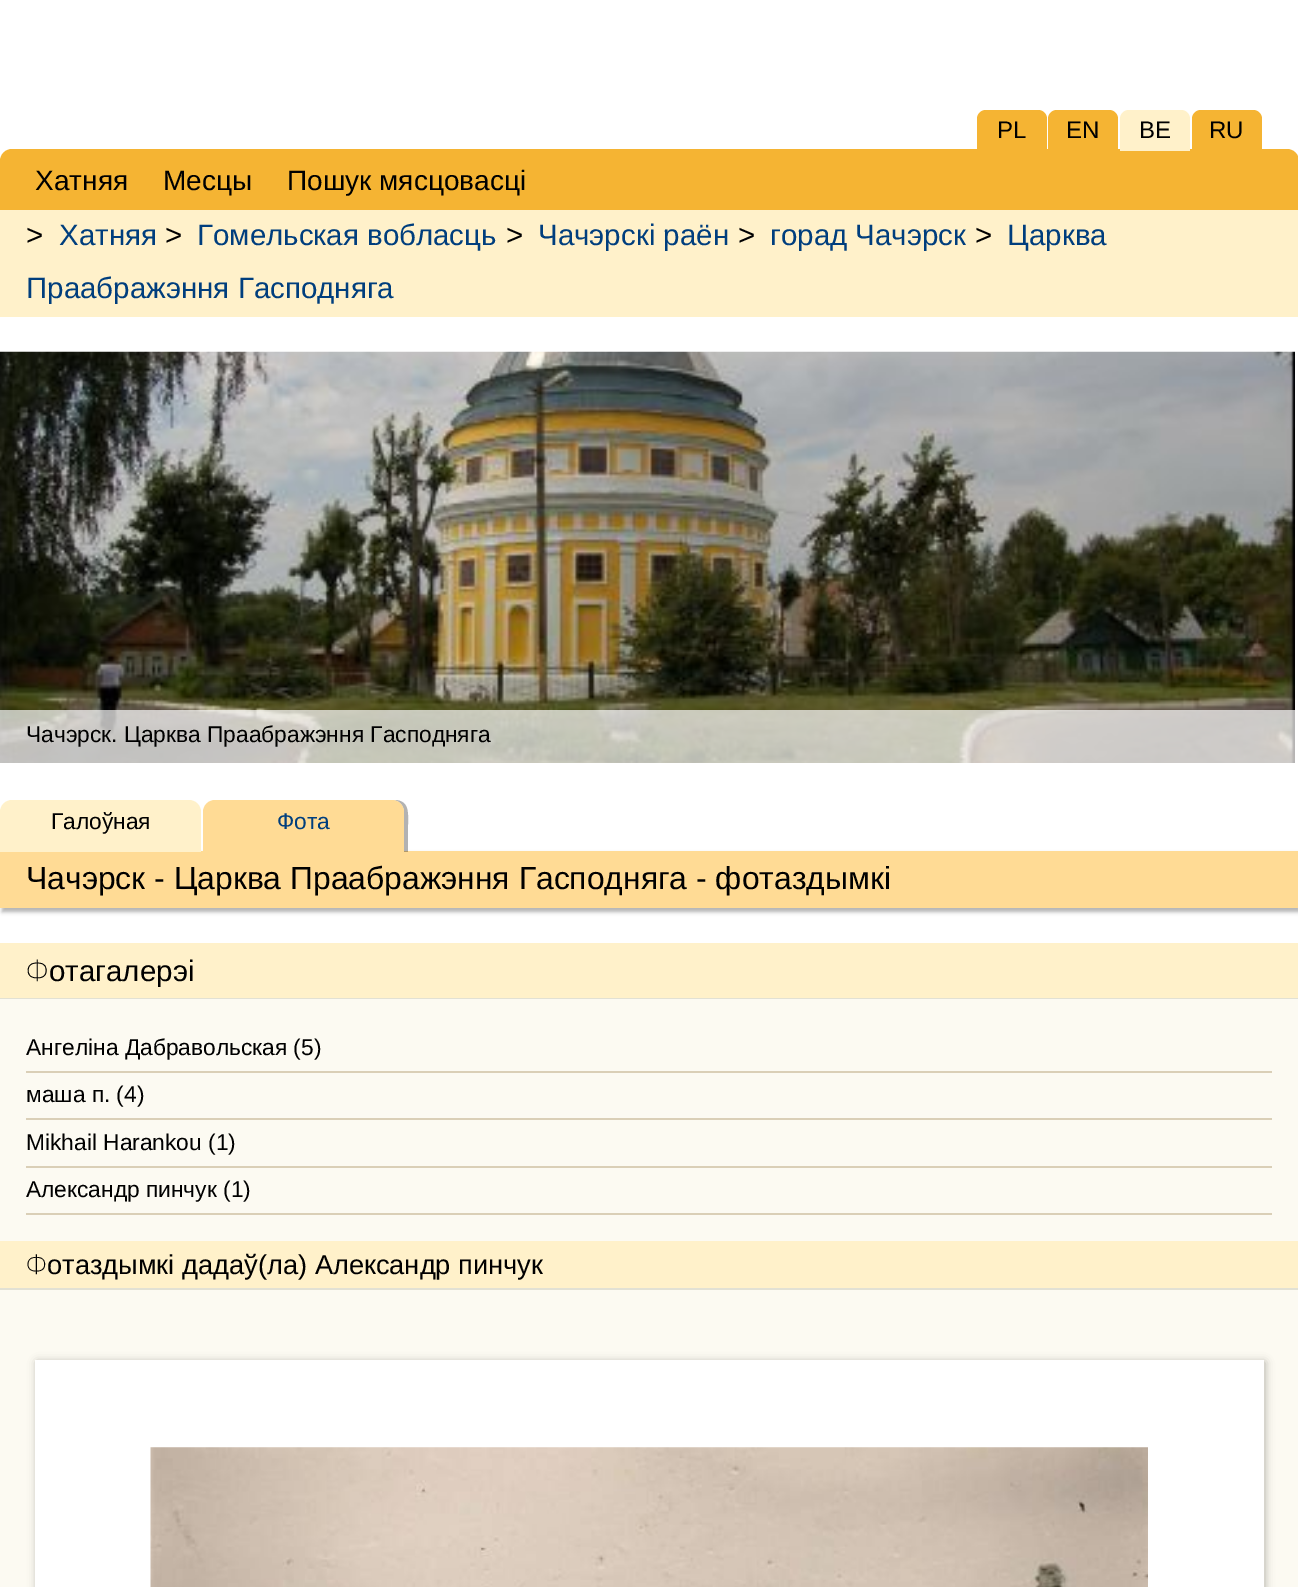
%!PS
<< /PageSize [1298 1587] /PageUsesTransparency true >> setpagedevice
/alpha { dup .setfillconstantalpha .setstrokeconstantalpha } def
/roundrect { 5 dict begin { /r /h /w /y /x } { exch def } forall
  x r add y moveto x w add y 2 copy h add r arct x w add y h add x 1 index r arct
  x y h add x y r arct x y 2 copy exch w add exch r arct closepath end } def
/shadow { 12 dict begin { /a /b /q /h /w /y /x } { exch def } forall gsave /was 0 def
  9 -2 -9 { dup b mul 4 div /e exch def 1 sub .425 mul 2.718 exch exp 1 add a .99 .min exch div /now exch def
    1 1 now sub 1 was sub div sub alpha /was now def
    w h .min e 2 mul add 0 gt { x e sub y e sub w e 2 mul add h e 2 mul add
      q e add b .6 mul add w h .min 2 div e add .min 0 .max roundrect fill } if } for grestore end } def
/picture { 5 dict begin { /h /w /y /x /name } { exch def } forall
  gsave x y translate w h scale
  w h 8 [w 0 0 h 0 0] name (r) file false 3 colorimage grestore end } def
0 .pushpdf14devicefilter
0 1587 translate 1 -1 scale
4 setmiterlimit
1 setgray
0 0 1298 1587 rectfill
0.961 0.706 0.2 setrgbcolor
newpath 12 149 moveto 1287 149 lineto 1293.5 149 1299 154.5 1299 161 curveto 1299 210 lineto 0 210 lineto 0 161 lineto 0 154.5 5.5 149 12 149 curveto closepath fill
newpath 986 110 moveto 1038 110 lineto 1043 110 1047 114 1047 119 curveto 1047 151 lineto 977 151 lineto 977 119 lineto 977 114 981 110 986 110 curveto closepath fill
/LiberationSans-Regular [24 0 0 -24 0 0] selectfont
0 setgray
997 138 moveto (PL) show
0.961 0.706 0.2 setrgbcolor
newpath 1057 110 moveto 1109 110 lineto 1114 110 1118 114 1118 119 curveto 1118 151 lineto 1048 151 lineto 1048 119 lineto 1048 114 1052 110 1057 110 curveto closepath fill
0 setgray
1066 138 moveto (EN) show
1 0.945 0.792 setrgbcolor
newpath 1129 110 moveto 1181 110 lineto 1186 110 1190 114 1190 119 curveto 1190 151 lineto 1120 151 lineto 1120 119 lineto 1120 114 1124 110 1129 110 curveto closepath fill
0 setgray
1139 138 moveto (BE) show
0.961 0.706 0.2 setrgbcolor
newpath 1201 110 moveto 1253 110 lineto 1258 110 1262 114 1262 119 curveto 1262 151 lineto 1192 151 lineto 1192 119 lineto 1192 114 1196 110 1201 110 curveto closepath fill
0 setgray
1209 138 moveto (RU) show
/LiberationSans-Regular [28 0 0 -28 0 0] selectfont
35 190 moveto (Хатняя) show
163 190 moveto (Месцы) show
287 190 moveto (Пошук мясцовасці) show
1 0.945 0.792 setrgbcolor
0 210 1298 107 rectfill
/LiberationSans-Regular [29.5 0 0 -29.5 0 0] selectfont
0 setgray
26 245 moveto (>) show
0 0.243 0.49 setrgbcolor
59 245 moveto (Хатняя) show
0 setgray
165 245 moveto (>) show
0 0.243 0.49 setrgbcolor
197 245 moveto (Гомельская вобласць) show
0 setgray
506 245 moveto (>) show
0 0.243 0.49 setrgbcolor
538 245 moveto (Чачэрскі раён) show
0 setgray
738 245 moveto (>) show
0 0.243 0.49 setrgbcolor
770 245 moveto (горад Чачэрск) show
0 setgray
975 245 moveto (>) show
0 0.243 0.49 setrgbcolor
1007 245 moveto (Царква) show
26 298 moveto (Праабражэння Гасподняга) show
(img1.rgb) 0 351 1295 412 picture
0.7 alpha
1 setgray
0 710 1295 53 rectfill
/LiberationSans-Regular [22.75 0 0 -22.75 0 0] selectfont
1 alpha
0 setgray
26 742 moveto (Чачэрск. Царква Праабражэння Гасподняга) show
2 854 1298 58 0 2 0.3 shadow
1 0.859 0.584 setrgbcolor
0 851 1298 57 rectfill
1 0.945 0.792 setrgbcolor
newpath 12 800 moveto 189 800 lineto 195.5 800 201 805.5 201 812 curveto 201 852 lineto 0 852 lineto 0 812 lineto 0 805.5 5.5 800 12 800 curveto closepath fill
0 setgray
51 829 moveto (Галоўная) show
0.3 alpha
newpath 404 852 moveto 408 852 lineto 408 825 lineto 408 814 410 800 394 800 curveto 400 801 404 806 404 812 curveto closepath fill
1 alpha
1 0.859 0.584 setrgbcolor
newpath 215 800 moveto 392 800 lineto 398.5 800 404 805.5 404 812 curveto 404 852 lineto 203 852 lineto 203 812 lineto 203 805.5 208.5 800 215 800 curveto closepath fill
0 0.243 0.49 setrgbcolor
277 829 moveto (Фота) show
/LiberationSans-Regular [31.85 0 0 -31.85 0 0] selectfont
0 setgray
26 889 moveto (Чачэрск - Царква Праабражэння Гасподняга - фотаздымкі) show
1 0.945 0.792 setrgbcolor
0 943 1298 55 rectfill
0.886 0.882 0.831 setrgbcolor
0 998 1298 1 rectfill
/NotoSans-ExtraLight [29.5 0 0 -29.5 0 0] selectfont
0 setgray
26 981 moveto (Ф) show
/LiberationSans-Regular [29.5 0 0 -29.5 0 0] selectfont
49 981 moveto (отагалерэі) show
0.988 0.98 0.949 setrgbcolor
0 999 1298 242 rectfill
0.855 0.812 0.718 setrgbcolor
26 1071 1246 2 rectfill
/LiberationSans-Regular [22.75 0 0 -22.75 0 0] selectfont
0 setgray
26 1055 moveto (Ангеліна Дабравольская \(5\)) show
0.855 0.812 0.718 setrgbcolor
26 1118 1246 2 rectfill
0 setgray
26 1102 moveto (маша п. \(4\)) show
0.855 0.812 0.718 setrgbcolor
26 1166 1246 2 rectfill
0 setgray
26 1150 moveto (Mikhail Harankou \(1\)) show
0.855 0.812 0.718 setrgbcolor
26 1213 1246 2 rectfill
0 setgray
26 1197 moveto (Александр пинчук \(1\)) show
1 0.945 0.792 setrgbcolor
0 1241 1298 47 rectfill
0.886 0.882 0.831 setrgbcolor
0 1288 1298 2 rectfill
/NotoSans-ExtraLight [27.25 0 0 -27.25 0 0] selectfont
0 setgray
26 1274 moveto (Ф) show
/LiberationSans-Regular [27.25 0 0 -27.25 0 0] selectfont
47 1274 moveto (отаздымкі дадаў\(ла\) Александр пинчук) show
0.988 0.98 0.949 setrgbcolor
0 1290 1298 297 rectfill
0 setgray
37 1362 1228 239 0 4.5 0.3 shadow
1 setgray
35 1360 1229 227 rectfill
(img2.rgb) 150 1447 998 140 picture
.poppdf14devicefilter showpage
